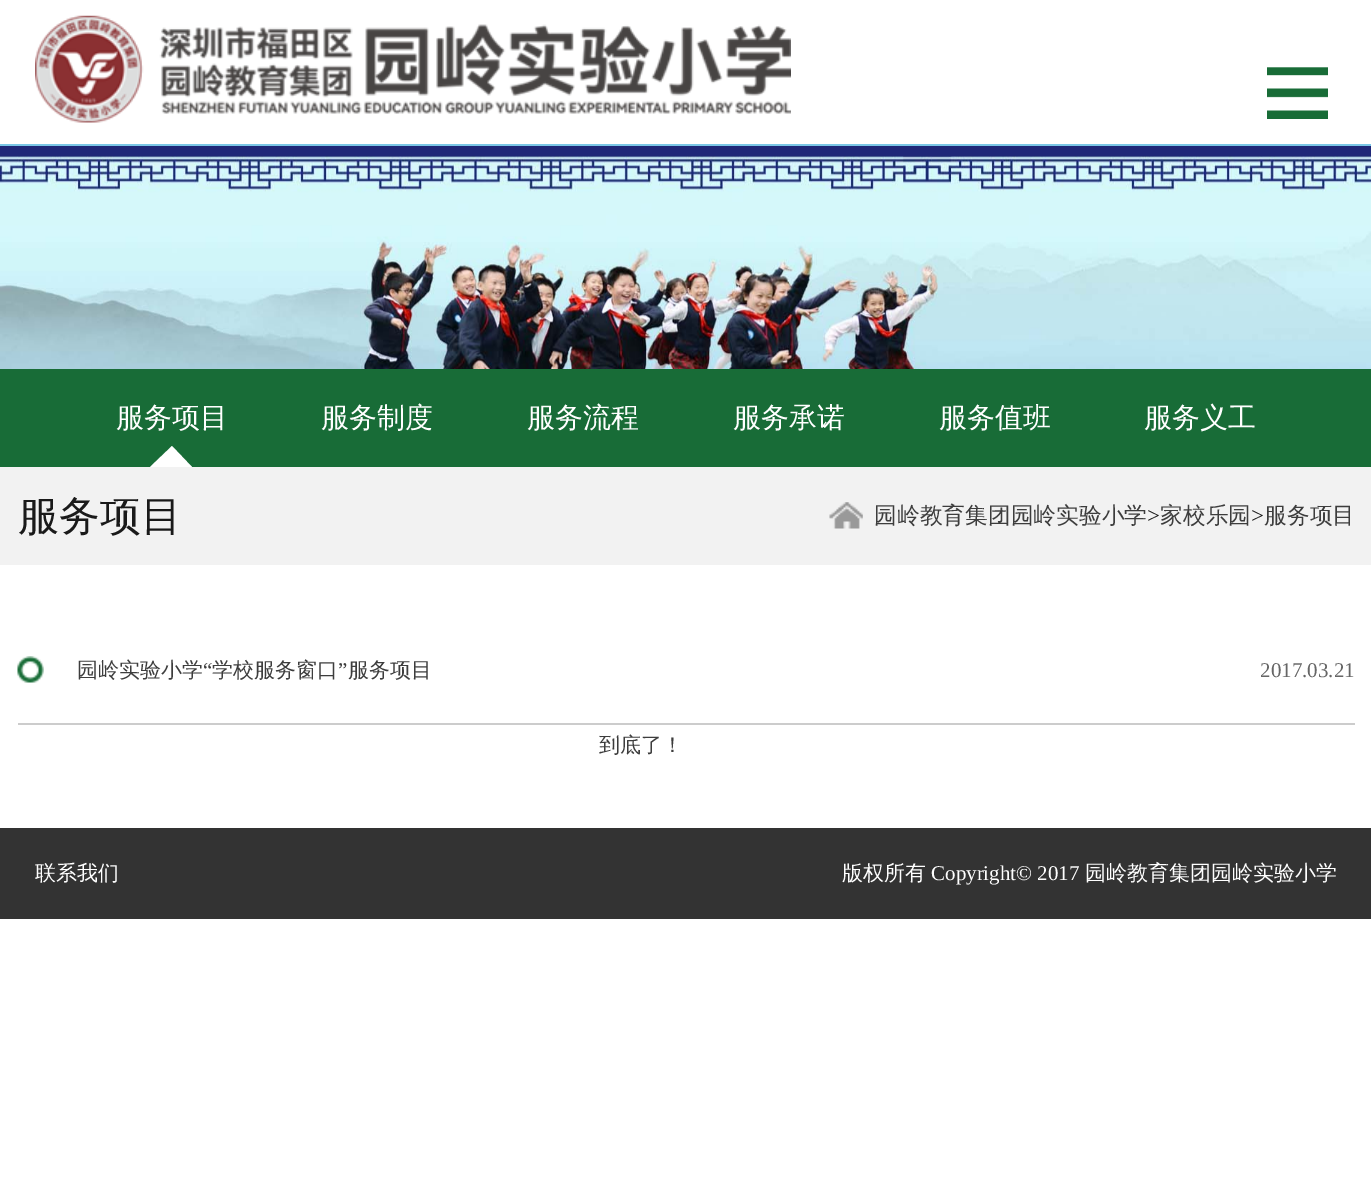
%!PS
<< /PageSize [1371 1200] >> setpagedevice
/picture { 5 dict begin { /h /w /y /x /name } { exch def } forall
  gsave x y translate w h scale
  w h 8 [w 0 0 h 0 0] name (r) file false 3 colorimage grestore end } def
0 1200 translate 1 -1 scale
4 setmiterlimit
1 setgray
0 0 1371 1200 rectfill
0.482 0.78 0.902 setrgbcolor
0 144 1371 2 rectfill
(img1.rgb) 35 15 756 108 picture
0.094 0.424 0.216 setrgbcolor
1267 67 61 52 rectfill
(img2.rgb) 1267 67 61 44 picture
(img3.rgb) 0 146 1371 223 picture
0 369 1371 98 rectfill
/WenQuanYiZenHei-Medium [28 0 0 -28 0 0] selectfont
1 setgray
116 427 moveto (服务项目) show
newpath 192 467 moveto 150 467 lineto 172 446 lineto closepath fill
321 427 moveto (服务制度) show
527 427 moveto (服务流程) show
733 427 moveto (服务承诺) show
939 427 moveto (服务值班) show
1144 427 moveto (服务义工) show
0.949 setgray
0 467 1371 98 rectfill
/WenQuanYiZenHei-Medium [41 0 0 -41 0 0] selectfont
0.102 setgray
18 530 moveto (服务项目) show
(img4.rgb) 829 502 34 27 picture
/WenQuanYiZenHei-Medium [22.75 0 0 -22.75 0 0] selectfont
0.239 setgray
874 523 moveto (园岭教育集团园岭实验小学) show
/LiberationSerif-Regular [22.75 0 0 -22.75 0 0] selectfont
0.102 setgray
1147 523 moveto (>) show
/WenQuanYiZenHei-Medium [22.75 0 0 -22.75 0 0] selectfont
0.239 setgray
1160 523 moveto (家校乐园) show
/LiberationSerif-Regular [22.75 0 0 -22.75 0 0] selectfont
0.102 setgray
1251 523 moveto (>) show
/WenQuanYiZenHei-Medium [22.75 0 0 -22.75 0 0] selectfont
0.239 setgray
1264 523 moveto (服务项目) show
0.8 setgray
18 723 1337 2 rectfill
(img5.rgb) 17 656 27 27 picture
/WenQuanYiZenHei-Medium [21 0 0 -21 0 0] selectfont
0.239 setgray
77 677 moveto (园岭实验小学) show
/LiberationSerif-Regular [21 0 0 -21 0 0] selectfont
203 677 moveto (“) show
/WenQuanYiZenHei-Medium [21 0 0 -21 0 0] selectfont
212 677 moveto (学校服务窗口) show
/LiberationSerif-Regular [21 0 0 -21 0 0] selectfont
338 677 moveto (”) show
/WenQuanYiZenHei-Medium [21 0 0 -21 0 0] selectfont
348 677 moveto (服务项目) show
/LiberationSerif-Regular [21 0 0 -21 0 0] selectfont
0.4 setgray
1260 677 moveto (2017.03.21) show
/WenQuanYiZenHei-Medium [21 0 0 -21 0 0] selectfont
0.239 setgray
599 752 moveto (到底了！) show
0.2 setgray
0 828 1371 91 rectfill
1 setgray
35 880 moveto (联系我们) show
842 880 moveto (版权所有) show
/LiberationSerif-Regular [21 0 0 -21 0 0] selectfont
931 880 moveto (Copyright© 2017) show
/WenQuanYiZenHei-Medium [21 0 0 -21 0 0] selectfont
1085 880 moveto (园岭教育集团园岭实验小学) show
showpage
